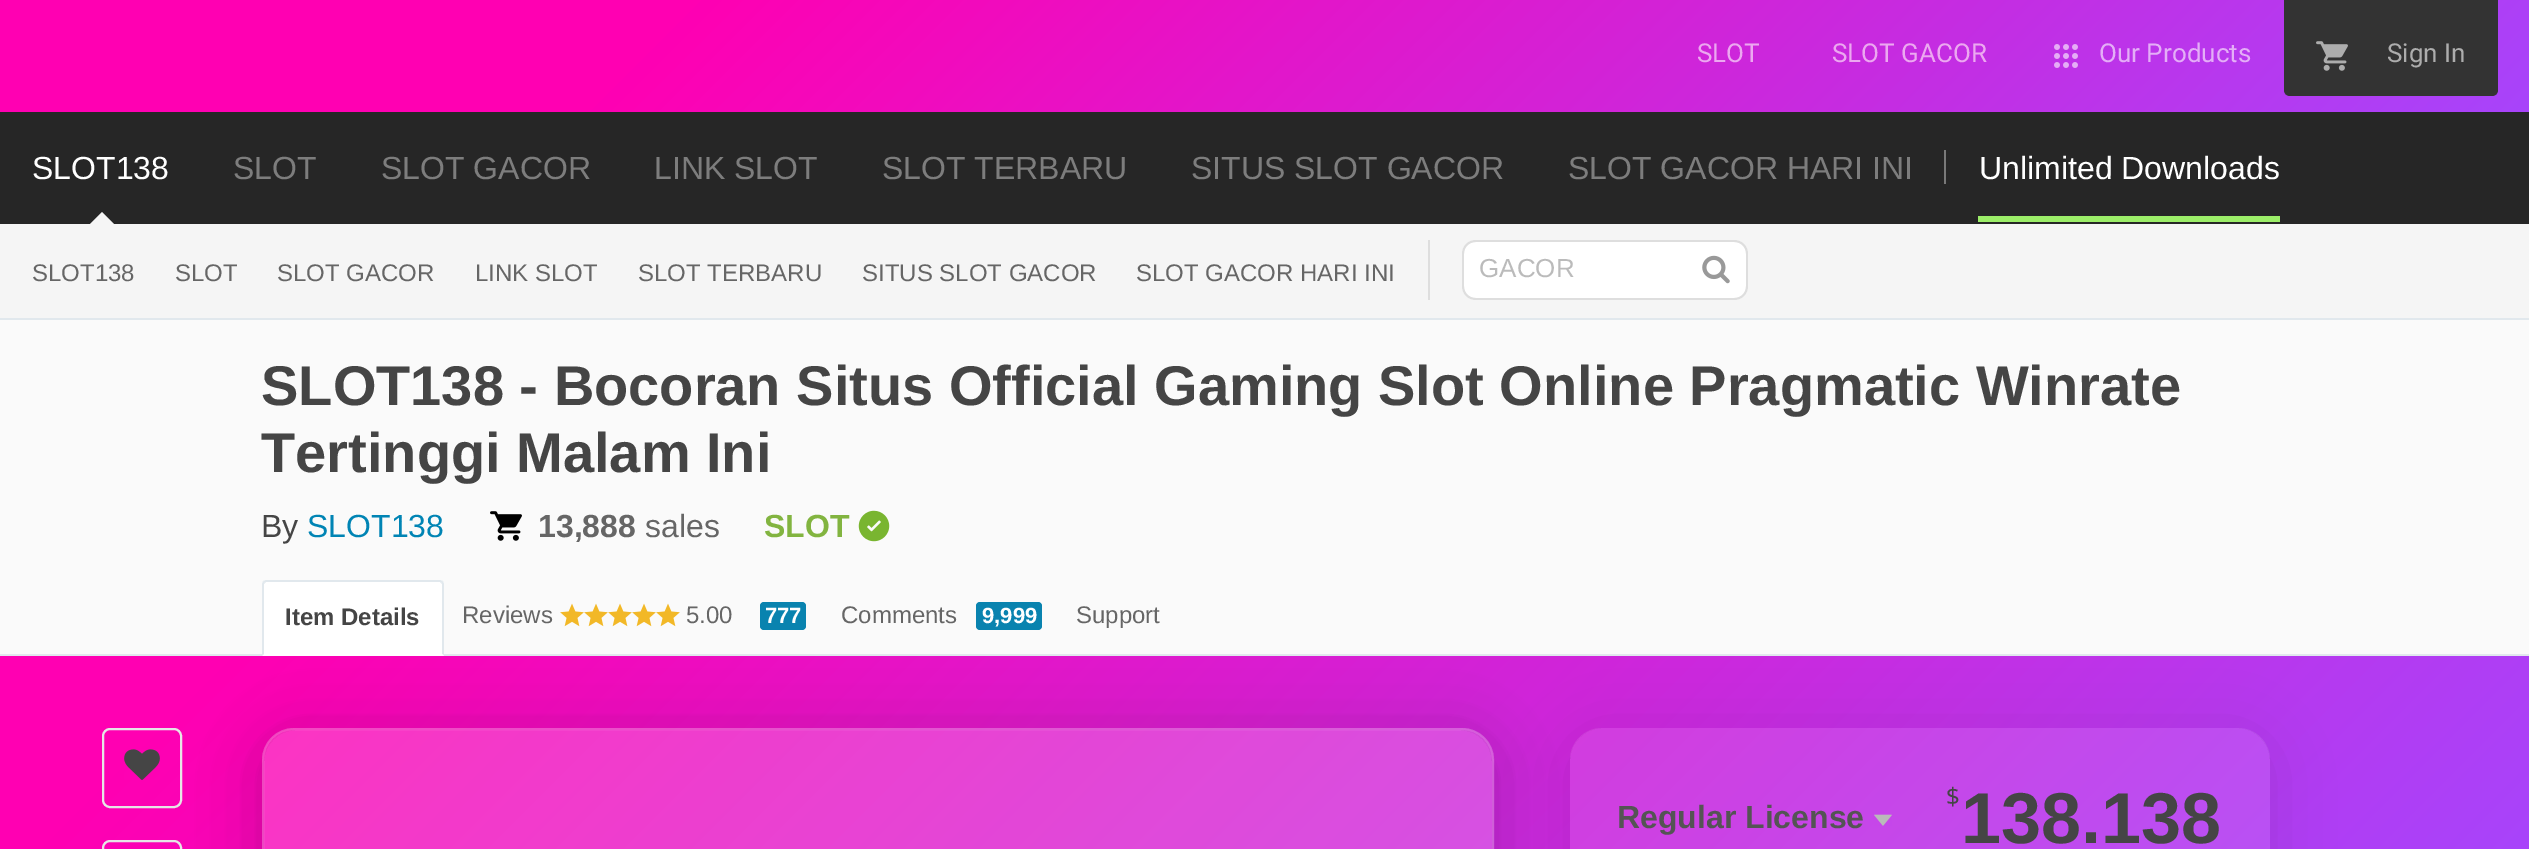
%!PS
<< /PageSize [2529 849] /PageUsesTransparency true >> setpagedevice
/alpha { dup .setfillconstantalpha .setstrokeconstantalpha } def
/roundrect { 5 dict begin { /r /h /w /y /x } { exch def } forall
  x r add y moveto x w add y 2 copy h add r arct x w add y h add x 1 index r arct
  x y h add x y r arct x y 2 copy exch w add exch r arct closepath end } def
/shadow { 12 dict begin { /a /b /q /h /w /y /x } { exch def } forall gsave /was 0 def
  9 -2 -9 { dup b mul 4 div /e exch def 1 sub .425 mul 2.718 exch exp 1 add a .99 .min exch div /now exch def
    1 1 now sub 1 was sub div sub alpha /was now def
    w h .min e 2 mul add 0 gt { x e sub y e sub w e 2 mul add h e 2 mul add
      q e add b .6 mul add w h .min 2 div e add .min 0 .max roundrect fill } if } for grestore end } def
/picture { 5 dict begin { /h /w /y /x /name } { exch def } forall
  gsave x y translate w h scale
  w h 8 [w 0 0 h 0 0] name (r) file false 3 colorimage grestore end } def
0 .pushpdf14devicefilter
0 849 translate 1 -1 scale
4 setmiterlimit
1 setgray
0 0 2529 849 rectfill
gsave newpath 0 656 moveto 2529 656 lineto 2529 849 lineto 0 849 lineto closepath clip newpath
<< /ShadingType 2 /ColorSpace /DeviceRGB /Coords [2110 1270 420 -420] /Extend [true true] /Function << /FunctionType 3 /Domain [0 1] /Functions [<< /FunctionType 2 /Domain [0 1] /C0 [0.659 0.267 0.984] /C1 [1 0 0.698] /N 1 >> << /FunctionType 2 /Domain [0 1] /C0 [1 0 0.698] /C1 [1 0 0.698] /N 1 >>] /Bounds [0.74] /Encode [0 1 0 1] >> >> shfill grestore
gsave newpath 0 0 moveto 2529 0 lineto 2529 112 lineto 0 112 lineto closepath clip newpath
<< /ShadingType 2 /ColorSpace /DeviceRGB /Coords [1926 717 604 -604] /Extend [true true] /Function << /FunctionType 3 /Domain [0 1] /Functions [<< /FunctionType 2 /Domain [0 1] /C0 [0.659 0.267 0.984] /C1 [1 0 0.698] /N 1 >> << /FunctionType 2 /Domain [0 1] /C0 [1 0 0.698] /C1 [1 0 0.698] /N 1 >>] /Bounds [0.74] /Encode [0 1 0 1] >> >> shfill grestore
/Roboto-Regular [26 0 0 -26 0 0] selectfont
0.925 0.659 0.941 setrgbcolor
1697 62 moveto (SLOT) show
1832 62 moveto (SLOT GACOR) show
(img1.rgb) 2054 44 24 24 picture
0.894 0.682 0.969 setrgbcolor
2099 62 moveto (Our Products) show
0.2 setgray
newpath 2284 0 moveto 2364 0 lineto 2364 96 lineto 2290 96 lineto 2286.5 96 2284 93.5 2284 90 curveto closepath fill
(img2.rgb) 2316 41 32 30 picture
newpath 2364 0 moveto 2498 0 lineto 2498 90 lineto 2498 93.5 2495.5 96 2492 96 curveto 2364 96 lineto closepath fill
0.678 setgray
2387 62 moveto (Sign In) show
0.149 setgray
0 112 2529 112 rectfill
/LiberationSans-Regular [32 0 0 -32 0 0] selectfont
1 setgray
32 179 moveto (SLOT138) show
0.961 setgray
newpath 114 224 moveto 90 224 lineto 102 212 lineto closepath fill
0.49 setgray
233 179 moveto (SLOT) show
381 179 moveto (SLOT GACOR) show
654 179 moveto (LINK SLOT) show
882 179 moveto (SLOT TERBARU) show
1191 179 moveto (SITUS SLOT GACOR) show
1568 179 moveto (SLOT GACOR HARI INI) show
0.475 setgray
1944 150 2 34 rectfill
1 setgray
1979 179 moveto (Unlimited Downloads) show
0.612 0.933 0.412 setrgbcolor
1978 216 302 6 rectfill
0.961 setgray
0 224 2529 94 rectfill
0.882 0.91 0.929 setrgbcolor
0 318 2529 2 rectfill
/LiberationSans-Regular [24 0 0 -24 0 0] selectfont
0.4 setgray
32 281 moveto (SLOT138) show
175 281 moveto (SLOT) show
277 281 moveto (SLOT GACOR) show
475 281 moveto (LINK SLOT) show
638 281 moveto (SLOT TERBARU) show
862 281 moveto (SITUS SLOT GACOR) show
1136 281 moveto (SLOT GACOR HARI INI) show
0.871 setgray
1428 240 2 60 rectfill
1 setgray
newpath 1476 240 moveto 1688 240 lineto 1688 300 lineto 1476 300 lineto 1468.5 300 1462 293.5 1462 286 curveto 1462 254 lineto 1462 246.5 1468.5 240 1476 240 curveto closepath fill
0.871 setgray
newpath 1476 240 moveto 1688 240 lineto 1688 300 lineto 1476 300 lineto 1468 300 1462 294 1462 286 curveto 1462 254 lineto 1462 246 1468 240 1476 240 curveto closepath 1476 242 moveto 1688 242 lineto 1688 298 lineto 1476 298 lineto 1469 298 1464 293 1464 286 curveto 1464 254 lineto 1464 247 1469 242 1476 242 curveto closepath eofill
/LiberationSans-Regular [26 0 0 -26 0 0] selectfont
0.733 setgray
1479 277 moveto (GACOR) show
1 setgray
newpath 1688 240 moveto 1734 240 lineto 1741.5 240 1748 246.5 1748 254 curveto 1748 286 lineto 1748 293.5 1741.5 300 1734 300 curveto 1688 300 lineto closepath fill
0.871 setgray
newpath 1688 240 moveto 1734 240 lineto 1742 240 1748 246 1748 254 curveto 1748 286 lineto 1748 294 1742 300 1734 300 curveto 1688 300 lineto closepath 1688 242 moveto 1734 242 lineto 1741 242 1746 247 1746 254 curveto 1746 286 lineto 1746 293 1741 298 1734 298 curveto 1688 298 lineto closepath eofill
(img3.rgb) 1702 255 28 29 picture
0.902 setgray
2 setlinewidth
103 729 78 78 7 roundrect stroke
103 841 78 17 7 roundrect stroke
gsave
newpath 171 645 moveto 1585 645 lineto 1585 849 lineto 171 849 lineto closepath 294 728 moveto 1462 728 lineto 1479.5 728 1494 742.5 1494 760 curveto 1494 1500 lineto 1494 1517.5 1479.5 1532 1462 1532 curveto 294 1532 lineto 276.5 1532 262 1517.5 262 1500 curveto 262 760 lineto 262 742.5 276.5 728 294 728 curveto closepath eoclip newpath
0 setgray
262 736 1232 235 32 30 0.1 shadow
grestore
0.1 alpha
1 setgray
262 728 1232 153 32 roundrect fill
0.2 alpha
263 729 1230 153 31 roundrect stroke
gsave
newpath 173 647 moveto 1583 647 lineto 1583 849 lineto 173 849 lineto closepath 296 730 moveto 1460 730 lineto 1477.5 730 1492 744.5 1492 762 curveto 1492 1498 lineto 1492 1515.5 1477.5 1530 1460 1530 curveto 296 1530 lineto 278.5 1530 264 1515.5 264 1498 curveto 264 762 lineto 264 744.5 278.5 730 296 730 curveto closepath eoclip newpath
1 alpha
0 setgray
264 738 1228 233 32 30 0.1 shadow
grestore
0.1 alpha
264 730 1228 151 32 roundrect fill
gsave
newpath 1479 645 moveto 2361 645 lineto 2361 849 lineto 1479 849 lineto closepath 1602 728 moveto 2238 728 lineto 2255.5 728 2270 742.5 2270 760 curveto 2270 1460 lineto 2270 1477.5 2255.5 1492 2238 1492 curveto 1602 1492 lineto 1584.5 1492 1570 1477.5 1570 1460 curveto 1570 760 lineto 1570 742.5 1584.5 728 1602 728 curveto closepath eoclip newpath
1 alpha
0 setgray
1570 736 700 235 32 30 0.1 shadow
grestore
1 alpha
0.98 setgray
0 320 2529 334 rectfill
0.882 0.91 0.929 setrgbcolor
0 654 2529 2 rectfill
/LiberationSans-Bold [56 0 0 -56 0 0] selectfont
0.271 setgray
261 405 moveto (SLOT138 - Bocoran Situs Official Gaming Slot Online Pragmatic Winrate) show
261 472 moveto (Tertinggi Malam Ini) show
/LiberationSans-Regular [32 0 0 -32 0 0] selectfont
261 537 moveto (By) show
0 0.518 0.706 setrgbcolor
307 537 moveto (SLOT138) show
(img4.rgb) 490 511 32 30 picture
/LiberationSans-Bold [32 0 0 -32 0 0] selectfont
0.4 setgray
538 537 moveto (13,888) show
/LiberationSans-Regular [32 0 0 -32 0 0] selectfont
645 537 moveto (sales) show
/LiberationSans-Bold [32 0 0 -32 0 0] selectfont
0.51 0.706 0.251 setrgbcolor
764 537 moveto (SLOT) show
(img5.rgb) 858 510 32 32 picture
1 setgray
newpath 266 580 moveto 440 580 lineto 442 580 444 582 444 584 curveto 444 656 lineto 262 656 lineto 262 584 lineto 262 582 264 580 266 580 curveto closepath fill
0.882 0.91 0.929 setrgbcolor
newpath 266 580 moveto 263 581 lineto 265 583 lineto 266 582 lineto 440 582 lineto 441 583 lineto 443 581 lineto 440 580 lineto closepath fill
newpath 444 656 moveto 444 584 lineto 443 581 lineto 441 583 lineto 442 584 lineto 442 654 lineto closepath fill
1 setgray
newpath 444 656 moveto 442 654 lineto 264 654 lineto 262 656 lineto closepath fill
0.882 0.91 0.929 setrgbcolor
newpath 262 656 moveto 264 654 lineto 264 584 lineto 265 583 lineto 263 581 lineto 262 584 lineto closepath fill
/LiberationSans-Bold [24 0 0 -24 0 0] selectfont
0.271 setgray
285 625 moveto (Item Details) show
/LiberationSans-Regular [24 0 0 -24 0 0] selectfont
0.4 setgray
462 623 moveto (Reviews) show
(img6.rgb) 560 603 24 24 picture
(img6.rgb) 584 603 24 24 picture
(img6.rgb) 608 603 24 24 picture
(img6.rgb) 632 603 24 24 picture
(img6.rgb) 656 603 24 24 picture
686 623 moveto (5.00) show
0.035 0.514 0.686 setrgbcolor
760 602 46 28 4 roundrect fill
/LiberationSans-Bold [22 0 0 -22 0 0] selectfont
1 setgray
765 623 moveto (777) show
/LiberationSans-Regular [24 0 0 -24 0 0] selectfont
0.4 setgray
841 623 moveto (Comments) show
0.035 0.514 0.686 setrgbcolor
976 602 66 28 4 roundrect fill
/LiberationSans-Bold [22 0 0 -22 0 0] selectfont
1 setgray
982 623 moveto (9,999) show
/LiberationSans-Regular [24 0 0 -24 0 0] selectfont
0.4 setgray
1076 623 moveto (Support) show
(img7.rgb) 124 749 36 31 picture
0.1 alpha
1 setgray
1570 728 700 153 32 roundrect fill
/LiberationSans-Bold [32 0 0 -32 0 0] selectfont
1 alpha
0.329 setgray
1617 828 moveto (Regular License) show
(img8.rgb) 1874 814 18 12 picture
/NotoSans-Regular [24 0 0 -24 0 0] selectfont
0.271 setgray
1946 805 moveto ($) show
/LiberationSans-Bold [72 0 0 -72 0 0] selectfont
1961 843 moveto (138.138) show
.poppdf14devicefilter showpage
